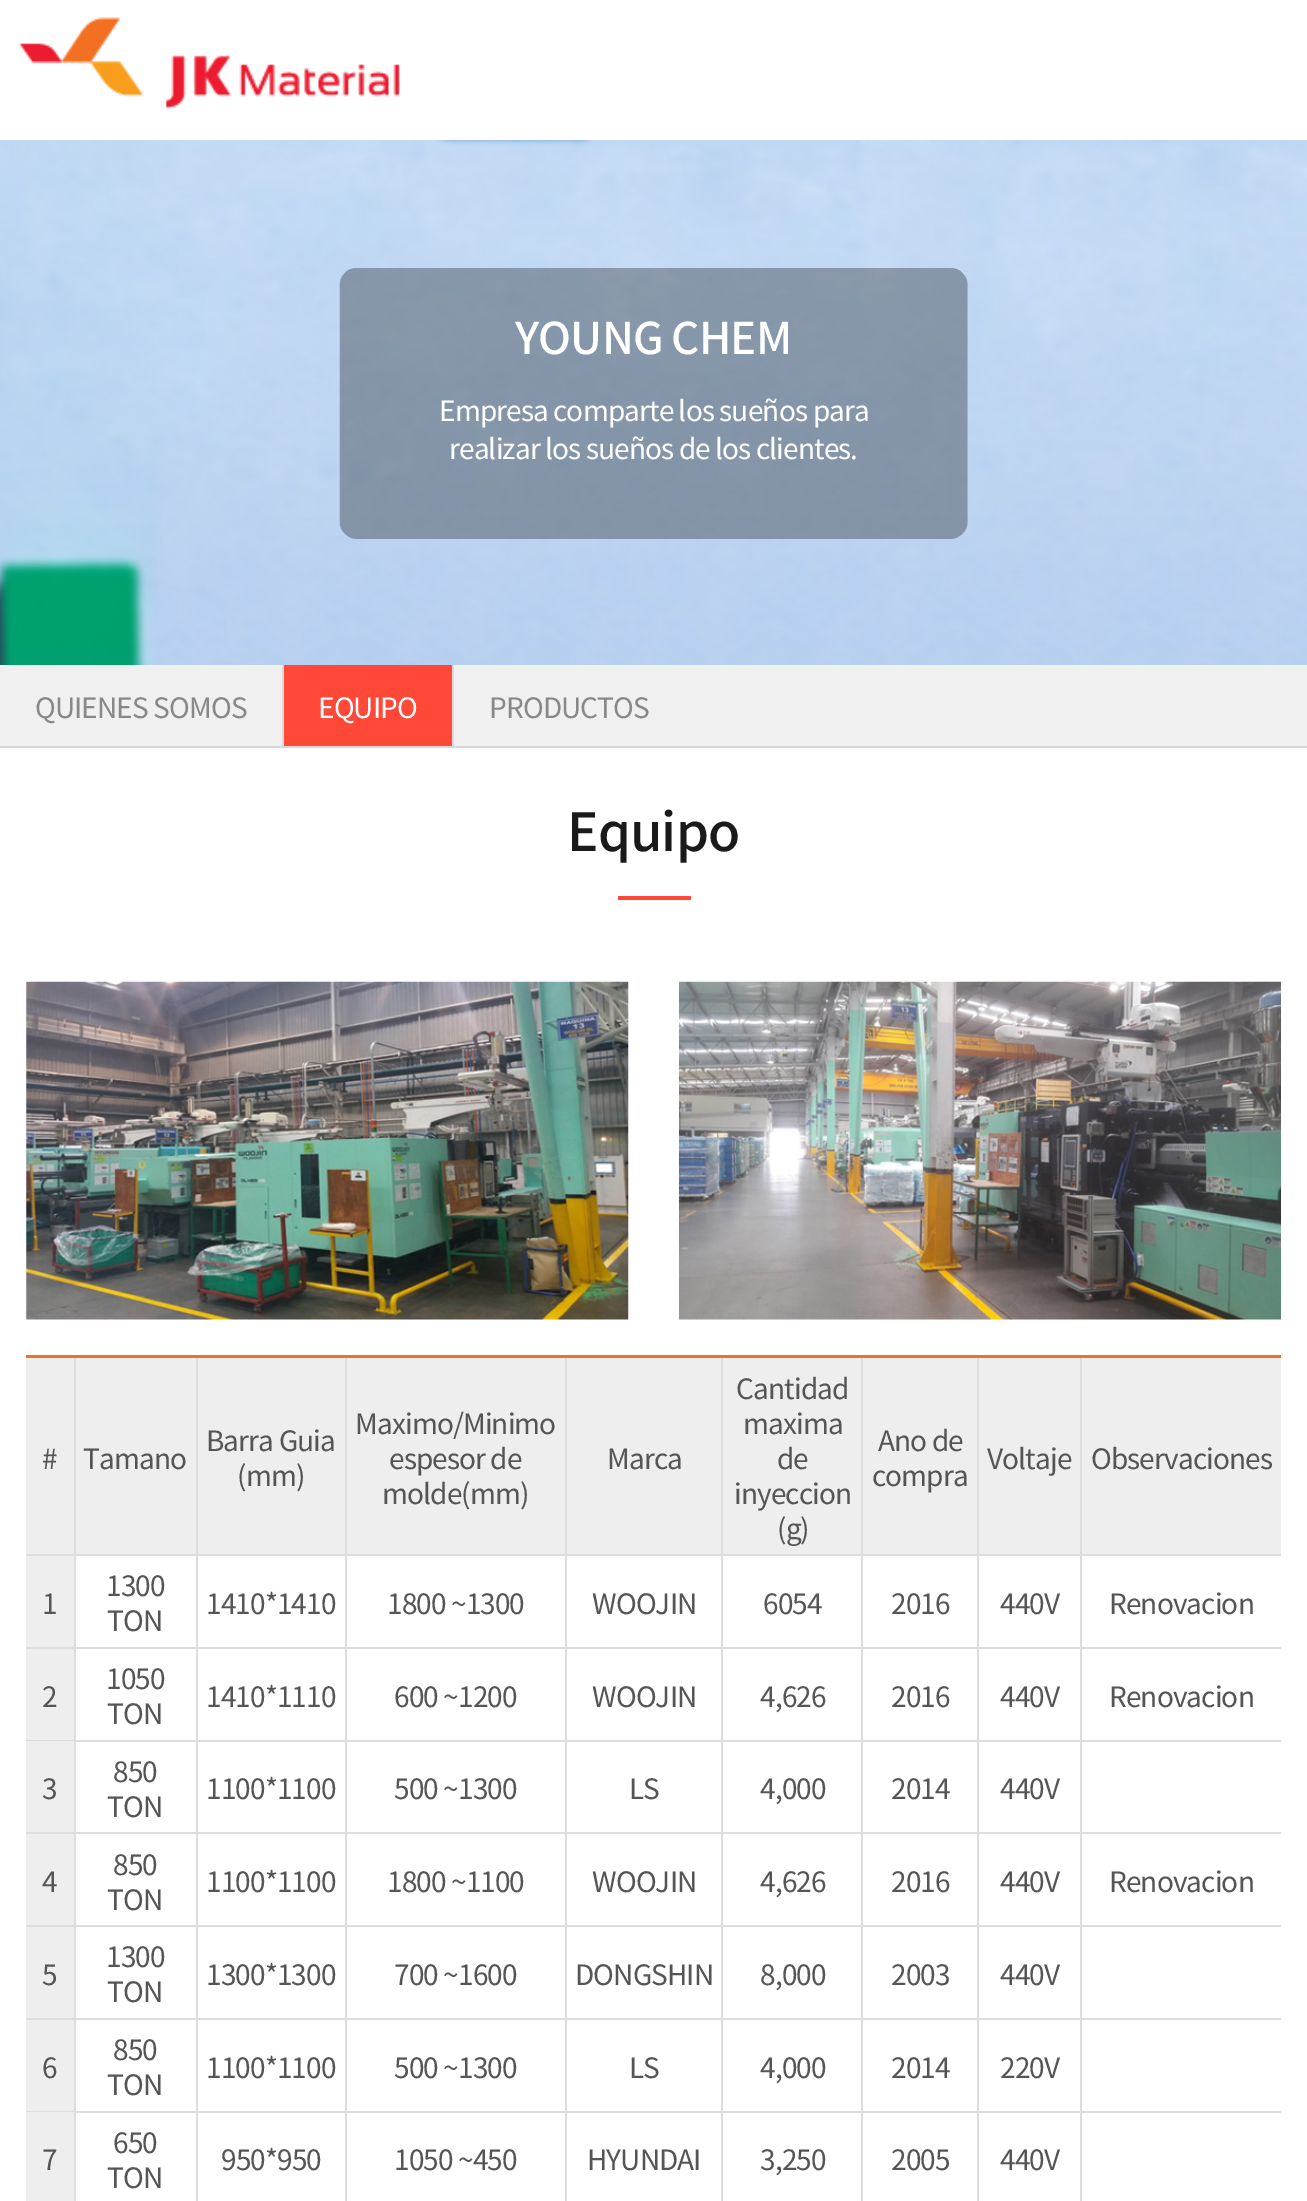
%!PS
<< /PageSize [1307 2201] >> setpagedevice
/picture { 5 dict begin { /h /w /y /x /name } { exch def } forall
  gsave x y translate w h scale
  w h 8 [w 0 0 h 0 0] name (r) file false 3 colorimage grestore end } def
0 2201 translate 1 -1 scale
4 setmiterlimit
1 setgray
0 0 1307 2201 rectfill
(img1.rgb) 19 17 381 92 picture
(img2.rgb) 0 140 1307 525 picture
(img3.rgb) 339 268 629 271 picture
/NotoSansSC-Medium [43.75 0 0 -43.75 0 0] selectfont
515 354 moveto -0.9 0 (YOUNG CHEM) ashow
/NotoSansSC-Regular [28 0 0 -28 0 0] selectfont
439 421 moveto -0.9 0 (Empresa comparte los sue) ashow
/NotoSansTC-Regular [28 0 0 -28 0 0] selectfont
762 421 moveto -0.9 0 (ñ) ashow
/NotoSansSC-Regular [28 0 0 -28 0 0] selectfont
779 421 moveto -0.9 0 (os para) ashow
449 459 moveto -0.9 0 (realizar los sue) ashow
/NotoSansTC-Regular [28 0 0 -28 0 0] selectfont
629 459 moveto -0.9 0 (ñ) ashow
/NotoSansSC-Regular [28 0 0 -28 0 0] selectfont
645 459 moveto -0.9 0 (os de los clientes.) ashow
0.941 setgray
0 665 1307 81 rectfill
0.851 setgray
0 746 1307 2 rectfill
0.533 setgray
35 718 moveto -0.9 0 (QUIENES SOMOS) ashow
1 0.282 0.216 setrgbcolor
284 665 168 81 rectfill
0.863 setgray
282 665 2 81 rectfill
1 setgray
318 718 moveto -0.9 0 (EQUIPO) ashow
0.863 setgray
452 665 2 81 rectfill
0.533 setgray
489 718 moveto -0.9 0 (PRODUCTOS) ashow
/NotoSansSC-Medium [52.5 0 0 -52.5 0 0] selectfont
0.102 setgray
567 851 moveto -0.9 0 (Equipo) ashow
1 0.282 0.216 setrgbcolor
618 896 73 4 rectfill
(img4.rgb) 26 981 603 339 picture
(img5.rgb) 679 981 602 339 picture
0.953 0.435 0.129 setrgbcolor
26 1355 1255 3 rectfill
0.933 setgray
26 1358 48 196 rectfill
0.867 setgray
26 1554 1255 2 rectfill
/NotoSansSC-Regular [28 0 0 -28 0 0] selectfont
0.333 setgray
42 1469 moveto -0.9 0 (#) ashow
0.933 setgray
76 1358 120 196 rectfill
0.867 setgray
74 1358 2 198 rectfill
0.333 setgray
83 1469 moveto -0.9 0 (Tamano) ashow
0.933 setgray
198 1358 147 196 rectfill
0.867 setgray
196 1358 2 198 rectfill
0.333 setgray
206 1451 moveto -0.9 0 (Barra Guia) ashow
237 1486 moveto -0.9 0 (\(mm\)) ashow
0.933 setgray
347 1358 218 196 rectfill
0.867 setgray
345 1358 2 198 rectfill
0.333 setgray
355 1434 moveto -0.9 0 (Maximo/Minimo) ashow
389 1469 moveto -0.9 0 (espesor de) ashow
382 1504 moveto -0.9 0 (molde\(mm\)) ashow
0.933 setgray
567 1358 154 196 rectfill
0.867 setgray
565 1358 2 198 rectfill
0.333 setgray
607 1469 moveto -0.9 0 (Marca) ashow
0.933 setgray
723 1358 138 196 rectfill
0.867 setgray
721 1358 2 198 rectfill
0.333 setgray
736 1399 moveto -0.9 0 (Cantidad) ashow
743 1434 moveto -0.9 0 (maxima) ashow
777 1469 moveto -0.9 0 (de) ashow
734 1504 moveto -0.9 0 (inyeccion) ashow
777 1539 moveto -0.9 0 (\(g\)) ashow
0.933 setgray
863 1358 114 196 rectfill
0.867 setgray
861 1358 2 198 rectfill
0.333 setgray
878 1451 moveto -0.9 0 (Ano de) ashow
872 1486 moveto -0.9 0 (compra) ashow
0.933 setgray
979 1358 101 196 rectfill
0.867 setgray
977 1358 2 198 rectfill
0.333 setgray
987 1469 moveto -0.9 0 (Voltaje) ashow
0.933 setgray
1082 1358 199 196 rectfill
0.867 setgray
1080 1358 2 198 rectfill
0.333 setgray
1091 1469 moveto -0.9 0 (Observaciones) ashow
0.933 setgray
26 1556 48 91 rectfill
0.867 setgray
26 1647 1255 2 rectfill
0.333 setgray
42 1614 moveto -0.9 0 (1) ashow
0.867 setgray
74 1556 2 93 rectfill
0.333 setgray
106 1596 moveto -0.9 0 (1300) ashow
107 1631 moveto -0.9 0 (TON) ashow
0.867 setgray
196 1556 2 93 rectfill
0.333 setgray
206 1614 moveto -0.9 0 (1410*1410) ashow
0.867 setgray
345 1556 2 93 rectfill
0.333 setgray
387 1614 moveto -0.9 0 (1800 ~1300) ashow
0.867 setgray
565 1556 2 93 rectfill
0.333 setgray
592 1614 moveto -0.9 0 (WOOJIN) ashow
0.867 setgray
721 1556 2 93 rectfill
0.333 setgray
763 1614 moveto -0.9 0 (6054) ashow
0.867 setgray
861 1556 2 93 rectfill
0.333 setgray
891 1614 moveto -0.9 0 (2016) ashow
0.867 setgray
977 1556 2 93 rectfill
0.333 setgray
1000 1614 moveto -0.9 0 (440V) ashow
0.867 setgray
1080 1556 2 93 rectfill
0.333 setgray
1109 1614 moveto -0.9 0 (Renovacion) ashow
0.933 setgray
26 1649 48 91 rectfill
0.867 setgray
26 1740 48 1 rectfill
0.333 setgray
42 1707 moveto -0.9 0 (2) ashow
0.867 setgray
74 1740 1207 2 rectfill
74 1649 2 92 rectfill
0.333 setgray
106 1689 moveto -0.9 0 (1050) ashow
107 1724 moveto -0.9 0 (TON) ashow
0.867 setgray
196 1649 2 92 rectfill
0.333 setgray
206 1707 moveto -0.9 0 (1410*1110) ashow
0.867 setgray
345 1649 2 92 rectfill
0.333 setgray
394 1707 moveto -0.9 0 (600 ~1200) ashow
0.867 setgray
565 1649 2 92 rectfill
0.333 setgray
592 1707 moveto -0.9 0 (WOOJIN) ashow
0.867 setgray
721 1649 2 92 rectfill
0.333 setgray
760 1707 moveto -0.9 0 (4,626) ashow
0.867 setgray
861 1649 2 92 rectfill
0.333 setgray
891 1707 moveto -0.9 0 (2016) ashow
0.867 setgray
977 1649 2 92 rectfill
0.333 setgray
1000 1707 moveto -0.9 0 (440V) ashow
0.867 setgray
1080 1649 2 92 rectfill
0.333 setgray
1109 1707 moveto -0.9 0 (Renovacion) ashow
0.933 setgray
26 1741 48 91 rectfill
0.867 setgray
26 1832 1255 2 rectfill
0.333 setgray
42 1799 moveto -0.9 0 (3) ashow
0.867 setgray
74 1741 2 93 rectfill
0.333 setgray
113 1782 moveto -0.9 0 (850) ashow
107 1817 moveto -0.9 0 (TON) ashow
0.867 setgray
196 1741 2 93 rectfill
0.333 setgray
206 1799 moveto -0.9 0 (1100*1100) ashow
0.867 setgray
345 1741 2 93 rectfill
0.333 setgray
394 1799 moveto -0.9 0 (500 ~1300) ashow
0.867 setgray
565 1741 2 93 rectfill
0.333 setgray
629 1799 moveto -0.9 0 (LS) ashow
0.867 setgray
721 1741 2 93 rectfill
0.333 setgray
760 1799 moveto -0.9 0 (4,000) ashow
0.867 setgray
861 1741 2 93 rectfill
0.333 setgray
891 1799 moveto -0.9 0 (2014) ashow
0.867 setgray
977 1741 2 93 rectfill
0.333 setgray
1000 1799 moveto -0.9 0 (440V) ashow
0.867 setgray
1080 1741 2 93 rectfill
0.933 setgray
26 1834 48 91 rectfill
0.867 setgray
26 1925 1255 2 rectfill
0.333 setgray
42 1892 moveto -0.9 0 (4) ashow
0.867 setgray
74 1834 2 93 rectfill
0.333 setgray
113 1875 moveto -0.9 0 (850) ashow
107 1910 moveto -0.9 0 (TON) ashow
0.867 setgray
196 1834 2 93 rectfill
0.333 setgray
206 1892 moveto -0.9 0 (1100*1100) ashow
0.867 setgray
345 1834 2 93 rectfill
0.333 setgray
387 1892 moveto -0.9 0 (1800 ~1100) ashow
0.867 setgray
565 1834 2 93 rectfill
0.333 setgray
592 1892 moveto -0.9 0 (WOOJIN) ashow
0.867 setgray
721 1834 2 93 rectfill
0.333 setgray
760 1892 moveto -0.9 0 (4,626) ashow
0.867 setgray
861 1834 2 93 rectfill
0.333 setgray
891 1892 moveto -0.9 0 (2016) ashow
0.867 setgray
977 1834 2 93 rectfill
0.333 setgray
1000 1892 moveto -0.9 0 (440V) ashow
0.867 setgray
1080 1834 2 93 rectfill
0.333 setgray
1109 1892 moveto -0.9 0 (Renovacion) ashow
0.933 setgray
26 1927 48 91 rectfill
0.867 setgray
26 2018 1255 2 rectfill
0.333 setgray
42 1985 moveto -0.9 0 (5) ashow
0.867 setgray
74 1927 2 93 rectfill
0.333 setgray
106 1967 moveto -0.9 0 (1300) ashow
107 2002 moveto -0.9 0 (TON) ashow
0.867 setgray
196 1927 2 93 rectfill
0.333 setgray
206 1985 moveto -0.9 0 (1300*1300) ashow
0.867 setgray
345 1927 2 93 rectfill
0.333 setgray
394 1985 moveto -0.9 0 (700 ~1600) ashow
0.867 setgray
565 1927 2 93 rectfill
0.333 setgray
575 1985 moveto -0.9 0 (DONGSHIN) ashow
0.867 setgray
721 1927 2 93 rectfill
0.333 setgray
760 1985 moveto -0.9 0 (8,000) ashow
0.867 setgray
861 1927 2 93 rectfill
0.333 setgray
891 1985 moveto -0.9 0 (2003) ashow
0.867 setgray
977 1927 2 93 rectfill
0.333 setgray
1000 1985 moveto -0.9 0 (440V) ashow
0.867 setgray
1080 1927 2 93 rectfill
0.933 setgray
26 2020 48 91 rectfill
0.867 setgray
26 2111 48 1 rectfill
0.333 setgray
42 2078 moveto -0.9 0 (6) ashow
0.867 setgray
74 2111 1207 2 rectfill
74 2020 2 181 rectfill
0.333 setgray
113 2060 moveto -0.9 0 (850) ashow
107 2095 moveto -0.9 0 (TON) ashow
0.867 setgray
196 2020 2 181 rectfill
0.333 setgray
206 2078 moveto -0.9 0 (1100*1100) ashow
0.867 setgray
345 2020 2 181 rectfill
0.333 setgray
394 2078 moveto -0.9 0 (500 ~1300) ashow
0.867 setgray
565 2020 2 181 rectfill
0.333 setgray
629 2078 moveto -0.9 0 (LS) ashow
0.867 setgray
721 2020 2 181 rectfill
0.333 setgray
760 2078 moveto -0.9 0 (4,000) ashow
0.867 setgray
861 2020 2 181 rectfill
0.333 setgray
891 2078 moveto -0.9 0 (2014) ashow
0.867 setgray
977 2020 2 181 rectfill
0.333 setgray
1000 2078 moveto -0.9 0 (220V) ashow
0.867 setgray
1080 2020 2 181 rectfill
0.933 setgray
26 2112 48 89 rectfill
0.333 setgray
42 2170 moveto -0.9 0 (7) ashow
113 2153 moveto -0.9 0 (650) ashow
107 2188 moveto -0.9 0 (TON) ashow
221 2170 moveto -0.9 0 (950*950) ashow
394 2170 moveto -0.9 0 (1050 ~450) ashow
587 2170 moveto -0.9 0 (HYUNDAI) ashow
760 2170 moveto -0.9 0 (3,250) ashow
891 2170 moveto -0.9 0 (2005) ashow
1000 2170 moveto -0.9 0 (440V) ashow
showpage
